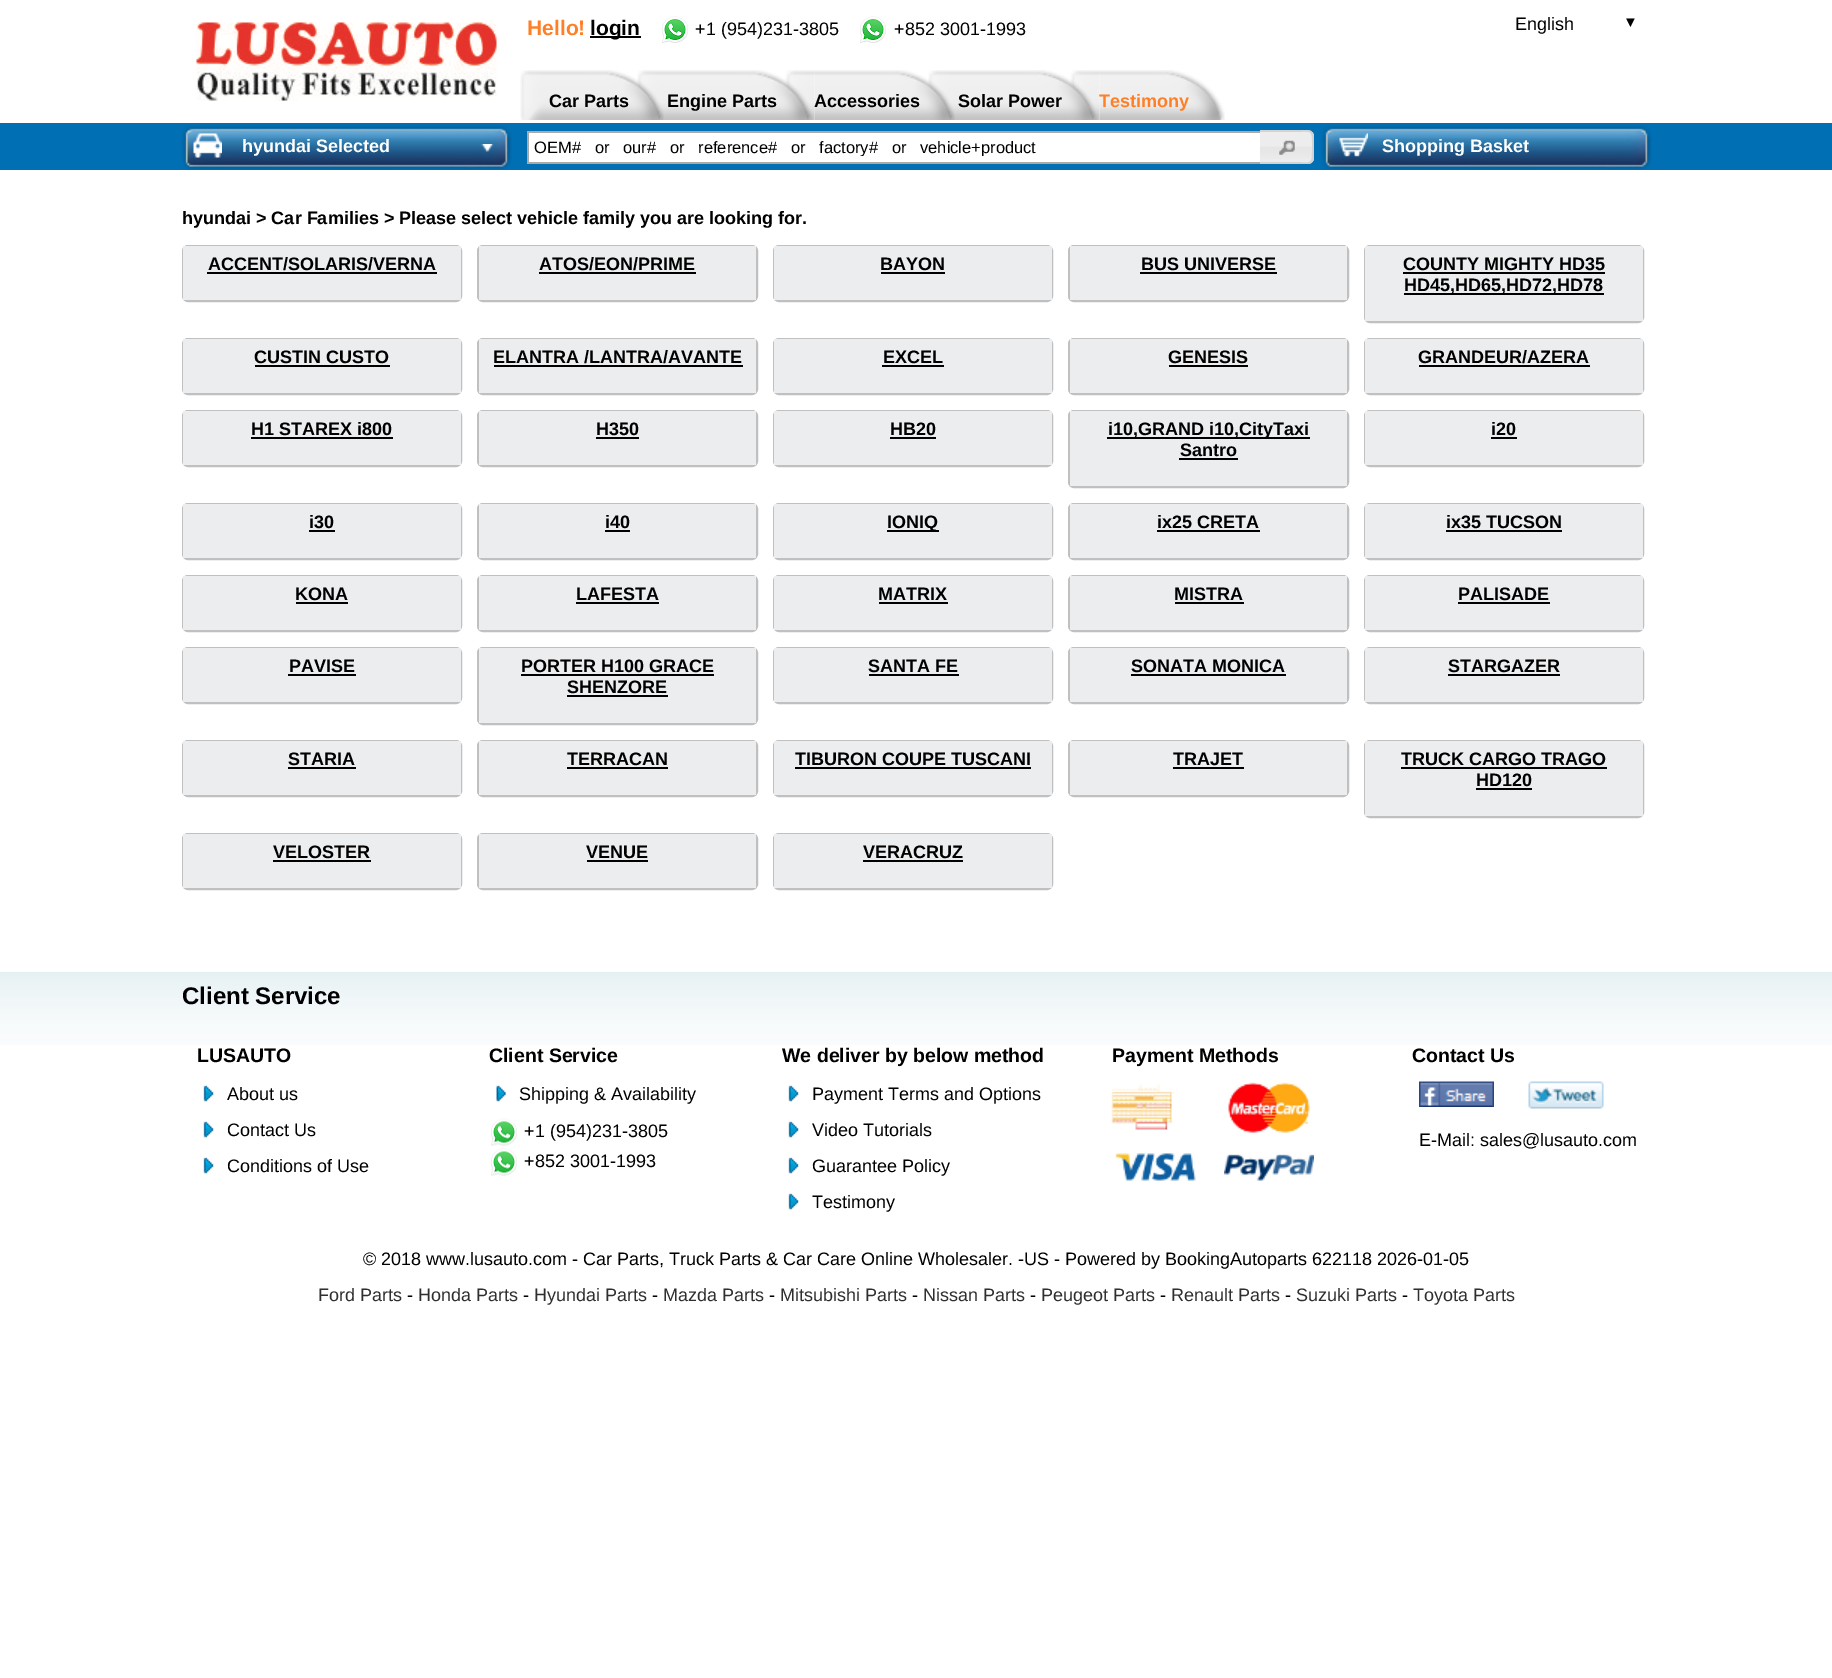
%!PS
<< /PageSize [1832 1678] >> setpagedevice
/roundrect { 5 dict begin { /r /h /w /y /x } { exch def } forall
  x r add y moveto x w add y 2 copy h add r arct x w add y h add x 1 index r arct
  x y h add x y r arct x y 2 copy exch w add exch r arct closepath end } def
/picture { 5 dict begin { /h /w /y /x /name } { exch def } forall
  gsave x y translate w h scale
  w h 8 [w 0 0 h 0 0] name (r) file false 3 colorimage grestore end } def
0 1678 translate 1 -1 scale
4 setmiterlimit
1 setgray
0 0 1832 1678 rectfill
(img1.rgb) 196 22 301 79 picture
/LiberationSans-Bold [21 0 0 -21 0 0] selectfont
1 0.498 0.153 setrgbcolor
527 35 moveto (Hello!) show
0 setgray
590 36 51 2 rectfill
590 35 moveto (login) show
(img2.rgb) 662 16 26 27 picture
/LiberationSans-Regular [18 0 0 -18 0 0] selectfont
695 35 moveto (+1 \(954\)231-3805) show
(img2.rgb) 860 16 26 27 picture
894 35 moveto (+852 3001-1993) show
1515 30 moveto (English) show
/LiberationSans-Regular [15 0 0 -15 0 0] selectfont
1623 27 moveto (▼) show
(img3.rgb) 520 70 29 50 picture
(img3.rgb) 637 70 29 50 picture
(img4.rgb) 549 70 115 50 picture
/LiberationSans-Bold [18 0 0 -18 0 0] selectfont
549 107 moveto (Car Parts) show
(img6.rgb) 785 70 30 50 picture
(img5.rgb) 666 70 147 50 picture
667 107 moveto (Engine Parts) show
(img3.rgb) 928 70 29 50 picture
(img7.rgb) 814 70 141 50 picture
814 107 moveto (Accessories) show
(img6.rgb) 1070 70 30 50 picture
(img8.rgb) 957 70 141 50 picture
958 107 moveto (Solar Power) show
(img9.rgb) 1099 70 126 50 picture
1 0.498 0.153 setrgbcolor
1099 107 moveto (Testimony) show
0 0.435 0.706 setrgbcolor
0 123 1832 47 rectfill
(img10.rgb) 181 125 331 45 picture
(img11.rgb) 193 133 29 25 picture
1 setgray
242 152 moveto (hyundai Selected) show
(img12.rgb) 481 144 13 8 picture
529 133 731 29 rectfill
0.667 setgray
527 131 733 2 rectfill
527 162 733 2 rectfill
527 131 2 33 rectfill
gsave
534 138 720 18 rectclip
/LiberationSans-Regular [16.5 0 0 -16.5 0 0] selectfont
0 setgray
534 153 moveto (OEM#   or   our#   or   reference#   or   factory#   or   vehicle+product) show
grestore
(img13.rgb) 1260 130 54 34 picture
0.827 setgray
newpath 1260 130 moveto 1308 130 lineto 1311 130 1314 133 1314 136 curveto 1314 158 lineto 1314 161 1311 164 1308 164 curveto 1260 164 lineto closepath 1260 132 moveto 1292 132 lineto 1313 132 1312 128 1312 147 curveto 1312 166 1313 162 1292 162 curveto 1260 162 lineto closepath eofill
(img14.rgb) 1279 140 16 15 picture
(img15.rgb) 1279 140 16 15 picture
(img16.rgb) 1321 125 331 45 picture
(img17.rgb) 1339 133 29 24 picture
1 setgray
1382 152 moveto (Shopping Basket) show
0 setgray
182 224 moveto (hyundai > Car Families > Please select vehicle family you are looking for.) show
0.753 setgray
2 setlinewidth
183 246 278 55 5 roundrect stroke
0.922 0.929 0.937 setrgbcolor
183 246 278 54 rectfill
0 setgray
208 270 moveto (ACCENT/SOLARIS/VERNA) show
207 272 230 2 rectfill
0.753 setgray
478 246 279 55 5 roundrect stroke
0.922 0.929 0.937 setrgbcolor
479 246 277 54 rectfill
0 setgray
539 270 moveto (ATOS/EON/PRIME) show
539 272 157 2 rectfill
0.753 setgray
774 246 278 55 5 roundrect stroke
0.922 0.929 0.937 setrgbcolor
774 246 278 54 rectfill
0 setgray
880 270 moveto (BAYON) show
881 272 64 2 rectfill
0.753 setgray
1069 246 279 55 5 roundrect stroke
0.922 0.929 0.937 setrgbcolor
1070 246 277 54 rectfill
0 setgray
1141 270 moveto (BUS UNIVERSE) show
1140 272 137 2 rectfill
0.753 setgray
1365 246 278 76 5 roundrect stroke
0.922 0.929 0.937 setrgbcolor
1365 246 278 75 rectfill
0 setgray
1403 270 moveto (COUNTY MIGHTY HD35) show
1403 272 202 2 rectfill
1404 293 200 2 rectfill
1404 291 moveto (HD45,HD65,HD72,HD78) show
0.753 setgray
183 339 278 55 5 roundrect stroke
0.922 0.929 0.937 setrgbcolor
183 339 278 54 rectfill
0 setgray
254 363 moveto (CUSTIN CUSTO) show
255 365 135 2 rectfill
0.753 setgray
478 339 279 55 5 roundrect stroke
0.922 0.929 0.937 setrgbcolor
479 339 277 54 rectfill
0 setgray
493 363 moveto (ELANTRA /LANTRA/AVANTE) show
494 365 249 2 rectfill
0.753 setgray
774 339 278 55 5 roundrect stroke
0.922 0.929 0.937 setrgbcolor
774 339 278 54 rectfill
0 setgray
883 363 moveto (EXCEL) show
882 365 62 2 rectfill
0.753 setgray
1069 339 279 55 5 roundrect stroke
0.922 0.929 0.937 setrgbcolor
1070 339 277 54 rectfill
0 setgray
1168 363 moveto (GENESIS) show
1169 365 79 2 rectfill
0.753 setgray
1365 339 278 55 5 roundrect stroke
0.922 0.929 0.937 setrgbcolor
1365 339 278 54 rectfill
0 setgray
1418 363 moveto (GRANDEUR/AZERA) show
1419 365 171 2 rectfill
0.753 setgray
183 411 278 55 5 roundrect stroke
0.922 0.929 0.937 setrgbcolor
183 411 278 54 rectfill
0 setgray
251 435 moveto (H1 STAREX i800) show
251 437 142 2 rectfill
0.753 setgray
478 411 279 55 5 roundrect stroke
0.922 0.929 0.937 setrgbcolor
479 411 277 54 rectfill
0 setgray
596 435 moveto (H350) show
596 437 43 2 rectfill
0.753 setgray
774 411 278 55 5 roundrect stroke
0.922 0.929 0.937 setrgbcolor
774 411 278 54 rectfill
0 setgray
890 435 moveto (HB20) show
890 437 46 2 rectfill
0.753 setgray
1069 411 279 76 5 roundrect stroke
0.922 0.929 0.937 setrgbcolor
1070 411 277 75 rectfill
0 setgray
1107 437 203 2 rectfill
1108 435 moveto (i10,GRAND i10,CityTaxi) show
1180 456 moveto (Santro) show
1179 458 59 2 rectfill
0.753 setgray
1365 411 278 55 5 roundrect stroke
0.922 0.929 0.937 setrgbcolor
1365 411 278 54 rectfill
0 setgray
1491 435 moveto (i20) show
1491 437 26 2 rectfill
0.753 setgray
183 504 278 55 5 roundrect stroke
0.922 0.929 0.937 setrgbcolor
183 504 278 54 rectfill
0 setgray
309 528 moveto (i30) show
309 530 26 2 rectfill
0.753 setgray
478 504 279 55 5 roundrect stroke
0.922 0.929 0.937 setrgbcolor
479 504 277 54 rectfill
0 setgray
605 528 moveto (i40) show
605 530 25 2 rectfill
0.753 setgray
774 504 278 55 5 roundrect stroke
0.922 0.929 0.937 setrgbcolor
774 504 278 54 rectfill
0 setgray
887 530 52 2 rectfill
887 528 moveto (IONIQ) show
0.753 setgray
1069 504 279 55 5 roundrect stroke
0.922 0.929 0.937 setrgbcolor
1070 504 277 54 rectfill
0 setgray
1157 528 moveto (ix25 CRETA) show
1157 530 103 2 rectfill
0.753 setgray
1365 504 278 55 5 roundrect stroke
0.922 0.929 0.937 setrgbcolor
1365 504 278 54 rectfill
0 setgray
1446 528 moveto (ix35 TUCSON) show
1446 530 116 2 rectfill
0.753 setgray
183 576 278 55 5 roundrect stroke
0.922 0.929 0.937 setrgbcolor
183 576 278 54 rectfill
0 setgray
295 600 moveto (KONA) show
296 602 52 2 rectfill
0.753 setgray
478 576 279 55 5 roundrect stroke
0.922 0.929 0.937 setrgbcolor
479 576 277 54 rectfill
0 setgray
576 600 moveto (LAFESTA) show
576 602 83 2 rectfill
0.753 setgray
774 576 278 55 5 roundrect stroke
0.922 0.929 0.937 setrgbcolor
774 576 278 54 rectfill
0 setgray
878 600 moveto (MATRIX) show
879 602 69 2 rectfill
0.753 setgray
1069 576 279 55 5 roundrect stroke
0.922 0.929 0.937 setrgbcolor
1070 576 277 54 rectfill
0 setgray
1174 600 moveto (MISTRA) show
1175 602 69 2 rectfill
0.753 setgray
1365 576 278 55 5 roundrect stroke
0.922 0.929 0.937 setrgbcolor
1365 576 278 54 rectfill
0 setgray
1458 600 moveto (PALISADE) show
1458 602 92 2 rectfill
0.753 setgray
183 648 278 55 5 roundrect stroke
0.922 0.929 0.937 setrgbcolor
183 648 278 54 rectfill
0 setgray
289 672 moveto (PAVISE) show
288 674 68 2 rectfill
0.753 setgray
478 648 279 76 5 roundrect stroke
0.922 0.929 0.937 setrgbcolor
479 648 277 75 rectfill
0 setgray
521 672 moveto (PORTER H100 GRACE) show
521 674 193 2 rectfill
567 693 moveto (SHENZORE) show
567 695 101 2 rectfill
0.753 setgray
774 648 278 55 5 roundrect stroke
0.922 0.929 0.937 setrgbcolor
774 648 278 54 rectfill
0 setgray
868 672 moveto (SANTA FE) show
869 674 90 2 rectfill
0.753 setgray
1069 648 279 55 5 roundrect stroke
0.922 0.929 0.937 setrgbcolor
1070 648 277 54 rectfill
0 setgray
1131 672 moveto (SONATA MONICA) show
1131 674 155 2 rectfill
0.753 setgray
1365 648 278 55 5 roundrect stroke
0.922 0.929 0.937 setrgbcolor
1365 648 278 54 rectfill
0 setgray
1448 672 moveto (STARGAZER) show
1448 674 112 2 rectfill
0.753 setgray
183 741 278 55 5 roundrect stroke
0.922 0.929 0.937 setrgbcolor
183 741 278 54 rectfill
0 setgray
288 765 moveto (STARIA) show
288 767 68 2 rectfill
0.753 setgray
478 741 279 55 5 roundrect stroke
0.922 0.929 0.937 setrgbcolor
479 741 277 54 rectfill
0 setgray
567 765 moveto (TERRACAN) show
567 767 101 2 rectfill
0.753 setgray
774 741 278 55 5 roundrect stroke
0.922 0.929 0.937 setrgbcolor
774 741 278 54 rectfill
0 setgray
795 765 moveto (TIBURON COUPE TUSCANI) show
795 767 236 2 rectfill
0.753 setgray
1069 741 279 55 5 roundrect stroke
0.922 0.929 0.937 setrgbcolor
1070 741 277 54 rectfill
0 setgray
1173 765 moveto (TRAJET) show
1173 767 71 2 rectfill
0.753 setgray
1365 741 278 76 5 roundrect stroke
0.922 0.929 0.937 setrgbcolor
1365 741 278 75 rectfill
0 setgray
1401 765 moveto (TRUCK CARGO TRAGO) show
1401 767 206 2 rectfill
1476 786 moveto (HD120) show
1476 788 56 2 rectfill
0.753 setgray
183 834 278 55 5 roundrect stroke
0.922 0.929 0.937 setrgbcolor
183 834 278 54 rectfill
0 setgray
273 858 moveto (VELOSTER) show
273 860 98 2 rectfill
0.753 setgray
478 834 279 55 5 roundrect stroke
0.922 0.929 0.937 setrgbcolor
479 834 277 54 rectfill
0 setgray
586 858 moveto (VENUE) show
587 860 61 2 rectfill
0.753 setgray
774 834 278 55 5 roundrect stroke
0.922 0.929 0.937 setrgbcolor
774 834 278 54 rectfill
0 setgray
863 858 moveto (VERACRUZ) show
863 860 100 2 rectfill
(img18.rgb) 0 972 1832 73 picture
/LiberationSans-Bold [24 0 0 -24 0 0] selectfont
182 1004 moveto (Client Service) show
/LiberationSans-Bold [19.5 0 0 -19.5 0 0] selectfont
197 1062 moveto (LUSAUTO) show
(img19.rgb) 203 1085 11 17 picture
/LiberationSans-Regular [18 0 0 -18 0 0] selectfont
227 1100 moveto (About us) show
(img19.rgb) 203 1121 11 17 picture
227 1136 moveto (Contact Us) show
(img19.rgb) 203 1157 11 17 picture
227 1172 moveto (Conditions of Use) show
/LiberationSans-Bold [19.5 0 0 -19.5 0 0] selectfont
489 1062 moveto (Client Service) show
(img20.rgb) 496 1085 10 17 picture
/LiberationSans-Regular [18 0 0 -18 0 0] selectfont
519 1100 moveto (Shipping & Availability) show
(img21.rgb) 491 1118 26 28 picture
524 1137 moveto (+1 \(954\)231-3805) show
(img21.rgb) 491 1148 26 28 picture
524 1167 moveto (+852 3001-1993) show
/LiberationSans-Bold [19.5 0 0 -19.5 0 0] selectfont
782 1062 moveto (We deliver by below method) show
(img19.rgb) 788 1085 11 17 picture
/LiberationSans-Regular [18 0 0 -18 0 0] selectfont
812 1100 moveto (Payment Terms and Options) show
(img19.rgb) 788 1121 11 17 picture
812 1136 moveto (Video Tutorials) show
(img19.rgb) 788 1157 11 17 picture
812 1172 moveto (Guarantee Policy) show
(img19.rgb) 788 1193 11 17 picture
812 1208 moveto (Testimony) show
/LiberationSans-Bold [19.5 0 0 -19.5 0 0] selectfont
1112 1062 moveto (Payment Methods) show
(img22.rgb) 1111 1084 64 46 picture
(img23.rgb) 1228 1082 82 51 picture
(img24.rgb) 1115 1153 81 29 picture
(img25.rgb) 1224 1154 90 27 picture
1412 1062 moveto (Contact Us) show
(img26.rgb) 1419 1081 75 26 picture
(img27.rgb) 1528 1081 76 28 picture
/LiberationSans-Regular [18 0 0 -18 0 0] selectfont
1419 1146 moveto (E-Mail: sales@lusauto.com) show
363 1265 moveto (© 2018 www.lusauto.com - Car Parts, Truck Parts & Car Care Online Wholesaler. -US - Powered by BookingAutoparts 622118 2026-01-05) show
0.184 setgray
318 1301 moveto (Ford Parts) show
0 setgray
407 1301 moveto (-) show
0.184 setgray
418 1301 moveto (Honda Parts) show
0 setgray
523 1301 moveto (-) show
0.184 setgray
534 1301 moveto (Hyundai Parts) show
0 setgray
652 1301 moveto (-) show
0.184 setgray
663 1301 moveto (Mazda Parts) show
0 setgray
769 1301 moveto (-) show
0.184 setgray
780 1301 moveto (Mitsubishi Parts) show
0 setgray
912 1301 moveto (-) show
0.184 setgray
923 1301 moveto (Nissan Parts) show
0 setgray
1030 1301 moveto (-) show
0.184 setgray
1041 1301 moveto (Peugeot Parts) show
0 setgray
1160 1301 moveto (-) show
0.184 setgray
1171 1301 moveto (Renault Parts) show
0 setgray
1285 1301 moveto (-) show
0.184 setgray
1296 1301 moveto (Suzuki Parts) show
0 setgray
1402 1301 moveto (-) show
0.184 setgray
1413 1301 moveto (Toyota Parts) show
showpage
